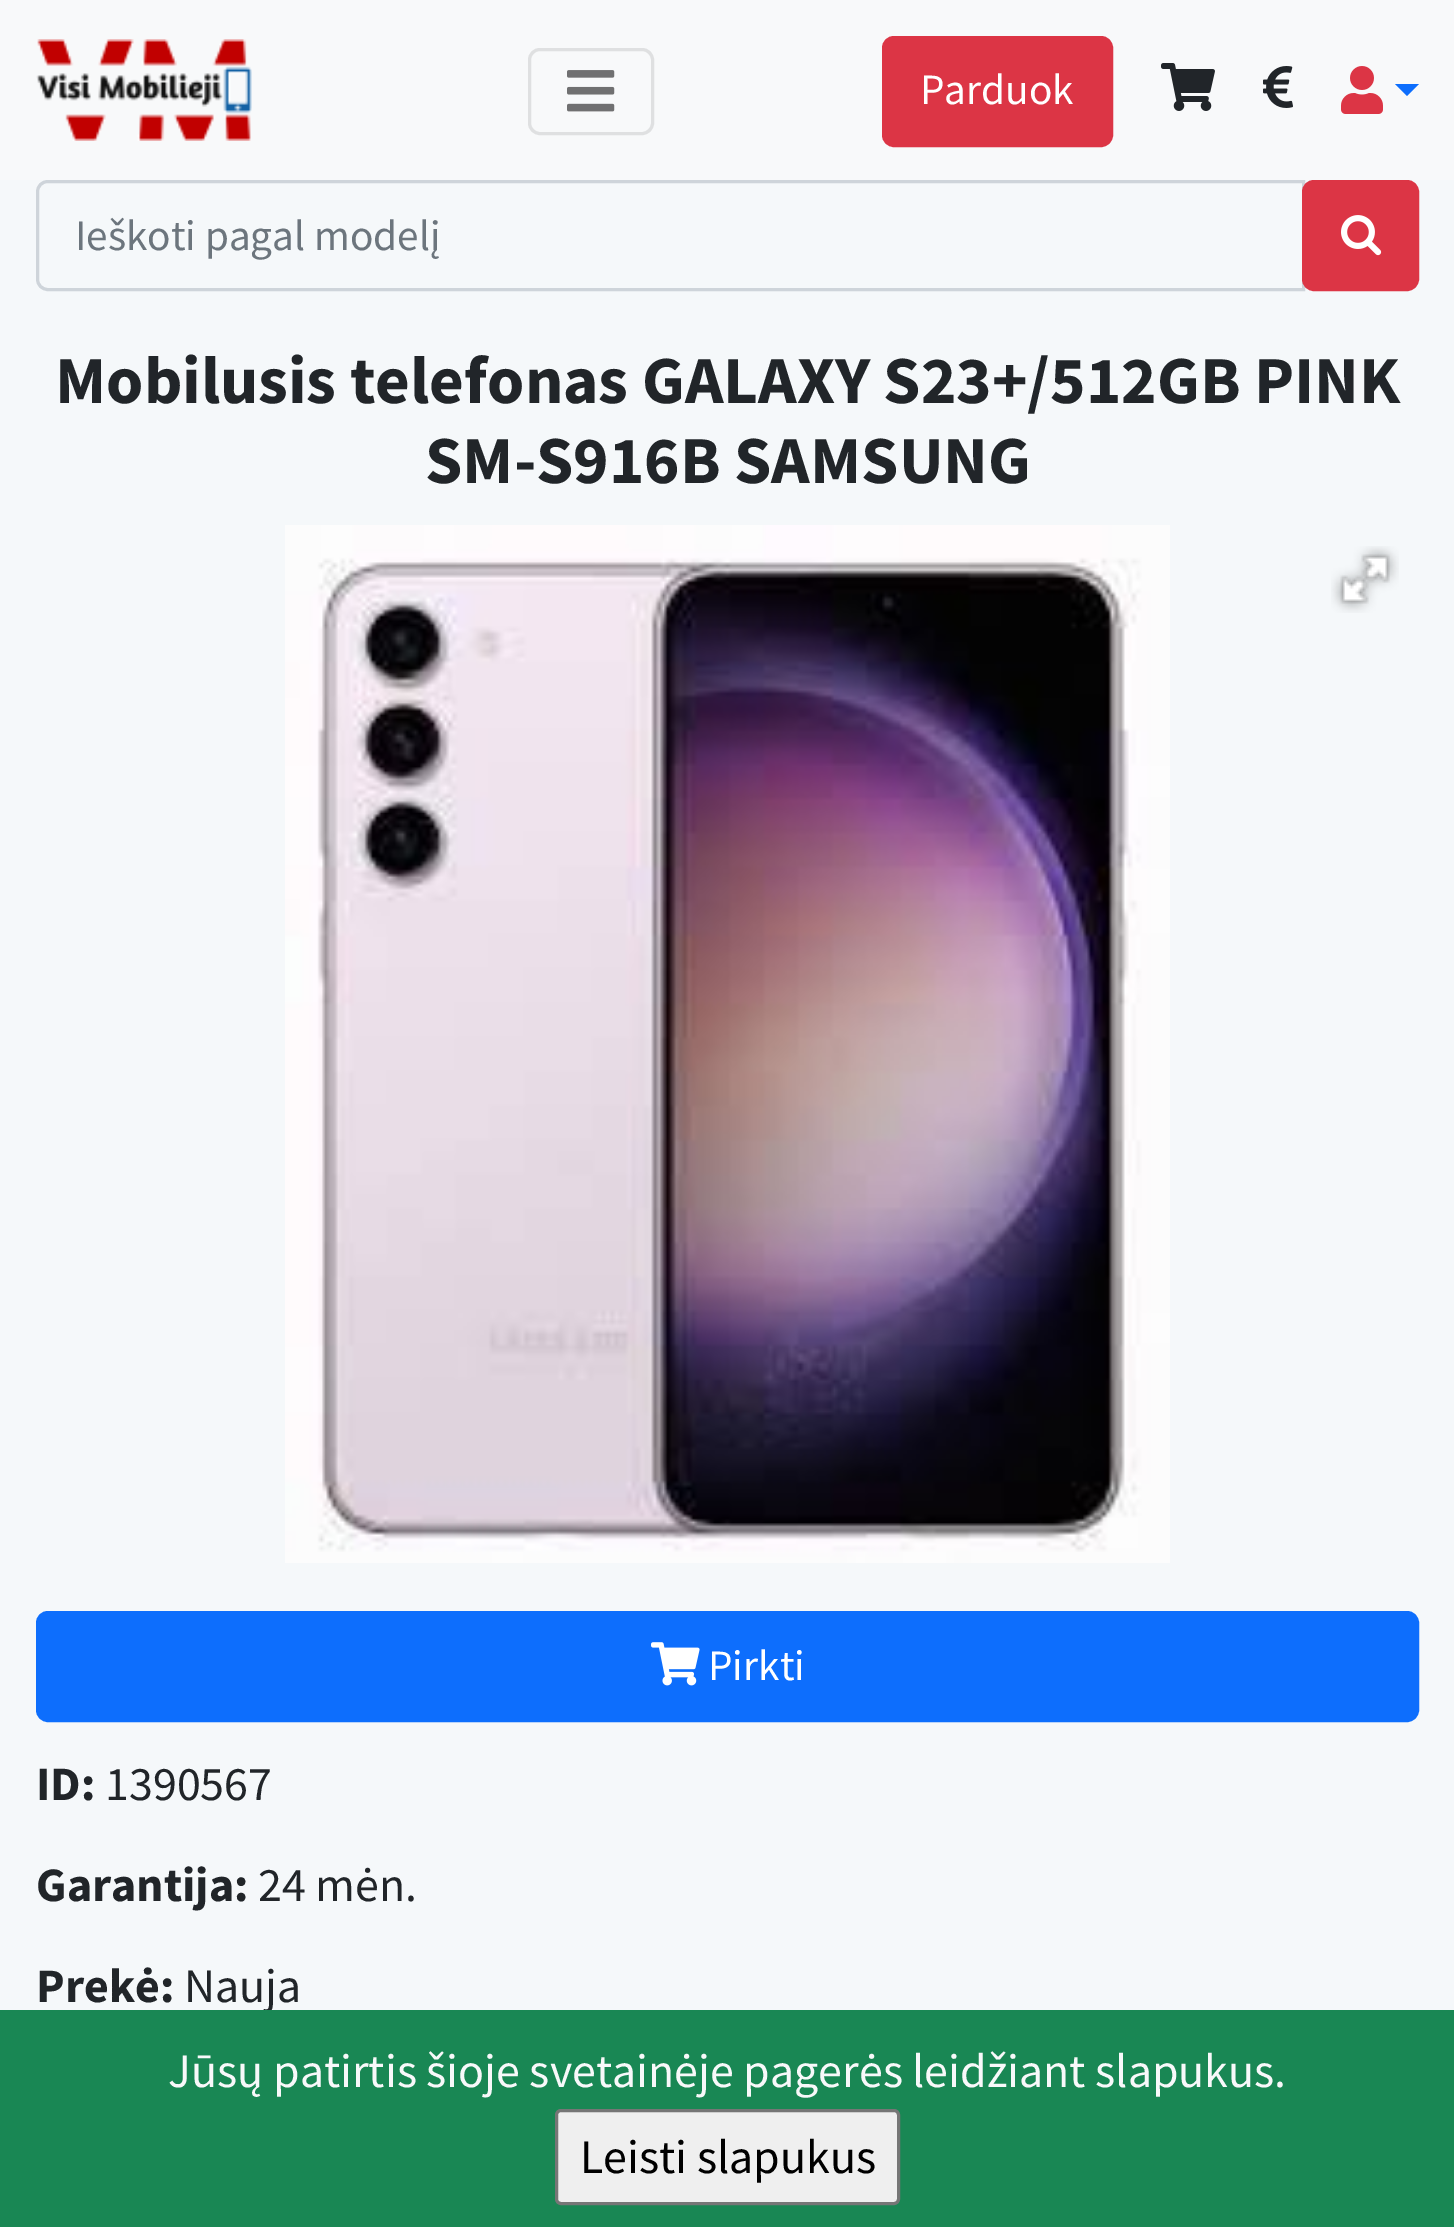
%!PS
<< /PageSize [1454 2227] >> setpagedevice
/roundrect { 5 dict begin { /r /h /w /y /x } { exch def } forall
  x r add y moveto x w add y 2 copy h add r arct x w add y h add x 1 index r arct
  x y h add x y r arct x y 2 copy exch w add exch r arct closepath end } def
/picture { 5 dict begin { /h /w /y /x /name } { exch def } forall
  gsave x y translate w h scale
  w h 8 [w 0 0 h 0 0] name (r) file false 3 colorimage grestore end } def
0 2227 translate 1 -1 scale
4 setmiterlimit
0.961 0.973 0.98 setrgbcolor
0 0 1454 2227 rectfill
0.973 0.976 0.98 setrgbcolor
0 0 1454 180 rectfill
(img1.rgb) 36 39 216 102 picture
0.875 0.878 0.882 setrgbcolor
3 setlinewidth
529.5 49.5 123 84 10.5 roundrect stroke
(img2.rgb) 567 70 48 42 picture
0.863 0.208 0.271 setrgbcolor
883.5 37.5 228 108 10.5 roundrect gsave fill grestore
stroke
/SourceSansPro-Regular [43.25 0 0 -43.25 0 0] selectfont
1 setgray
920 104 moveto (Parduok) show
(img3.rgb) 1161 63 54 48 picture
(img4.rgb) 1263 66 30 42 picture
(img5.rgb) 1341 66 42 48 picture
0.051 0.431 0.992 setrgbcolor
newpath 1395 84 moveto 1419 84 lineto 1407 96 lineto closepath fill
0.808 0.831 0.855 setrgbcolor
newpath 48 181.5 moveto 1303.5 181.5 lineto 1303.5 289.5 lineto 48 289.5 lineto 42 289.5 37.5 285 37.5 279 curveto 37.5 192 lineto 37.5 186 42 181.5 48 181.5 curveto closepath stroke
0.424 0.459 0.49 setrgbcolor
75 250 moveto (Ieškoti pagal modelį) show
0.863 0.208 0.271 setrgbcolor
1303.5 181.5 114 108 10.5 roundrect gsave fill grestore
stroke
(img6.rgb) 1341 215 41 41 picture
/SourceSansPro-Bold [67.25 0 0 -67.25 0 0] selectfont
0.129 0.145 0.161 setrgbcolor
55 403 moveto (Mobilusis telefonas GALAXY S23+/512GB PINK) show
425 483 moveto (SM-S916B SAMSUNG) show
(img7.rgb) 285 525 885 1038 picture
(img8.rgb) 1331 546 68 67 picture
0.051 0.431 0.992 setrgbcolor
37.5 1612.5 1380 108 10.5 roundrect gsave fill grestore
stroke
(img9.rgb) 651 1642 49 44 picture
/SourceSansPro-Regular [43.25 0 0 -43.25 0 0] selectfont
1 setgray
708 1680 moveto (Pirkti) show
/SourceSansPro-Bold [48 0 0 -48 0 0] selectfont
0.129 0.145 0.161 setrgbcolor
36 1800 moveto (ID:) show
/SourceSansPro-Regular [48 0 0 -48 0 0] selectfont
105 1800 moveto (1390567) show
/SourceSansPro-Bold [48 0 0 -48 0 0] selectfont
36 1901 moveto (Garantija:) show
/SourceSansPro-Regular [48 0 0 -48 0 0] selectfont
258 1901 moveto (24 mėn.) show
/SourceSansPro-Bold [48 0 0 -48 0 0] selectfont
36 2002 moveto (Prekė:) show
/SourceSansPro-Regular [48 0 0 -48 0 0] selectfont
184 2002 moveto (Nauja) show
0.098 0.529 0.329 setrgbcolor
0 2010 1454 217 rectfill
0.973 0.976 0.98 setrgbcolor
168 2087 moveto (Jūsų patirtis šioje svetainėje pagerės leidžiant slapukus.) show
0.937 setgray
556.5 2110.5 342 93 4.5 roundrect gsave fill grestore
0.463 setgray
stroke
0 setgray
580 2173 moveto (Leisti slapukus) show
showpage
